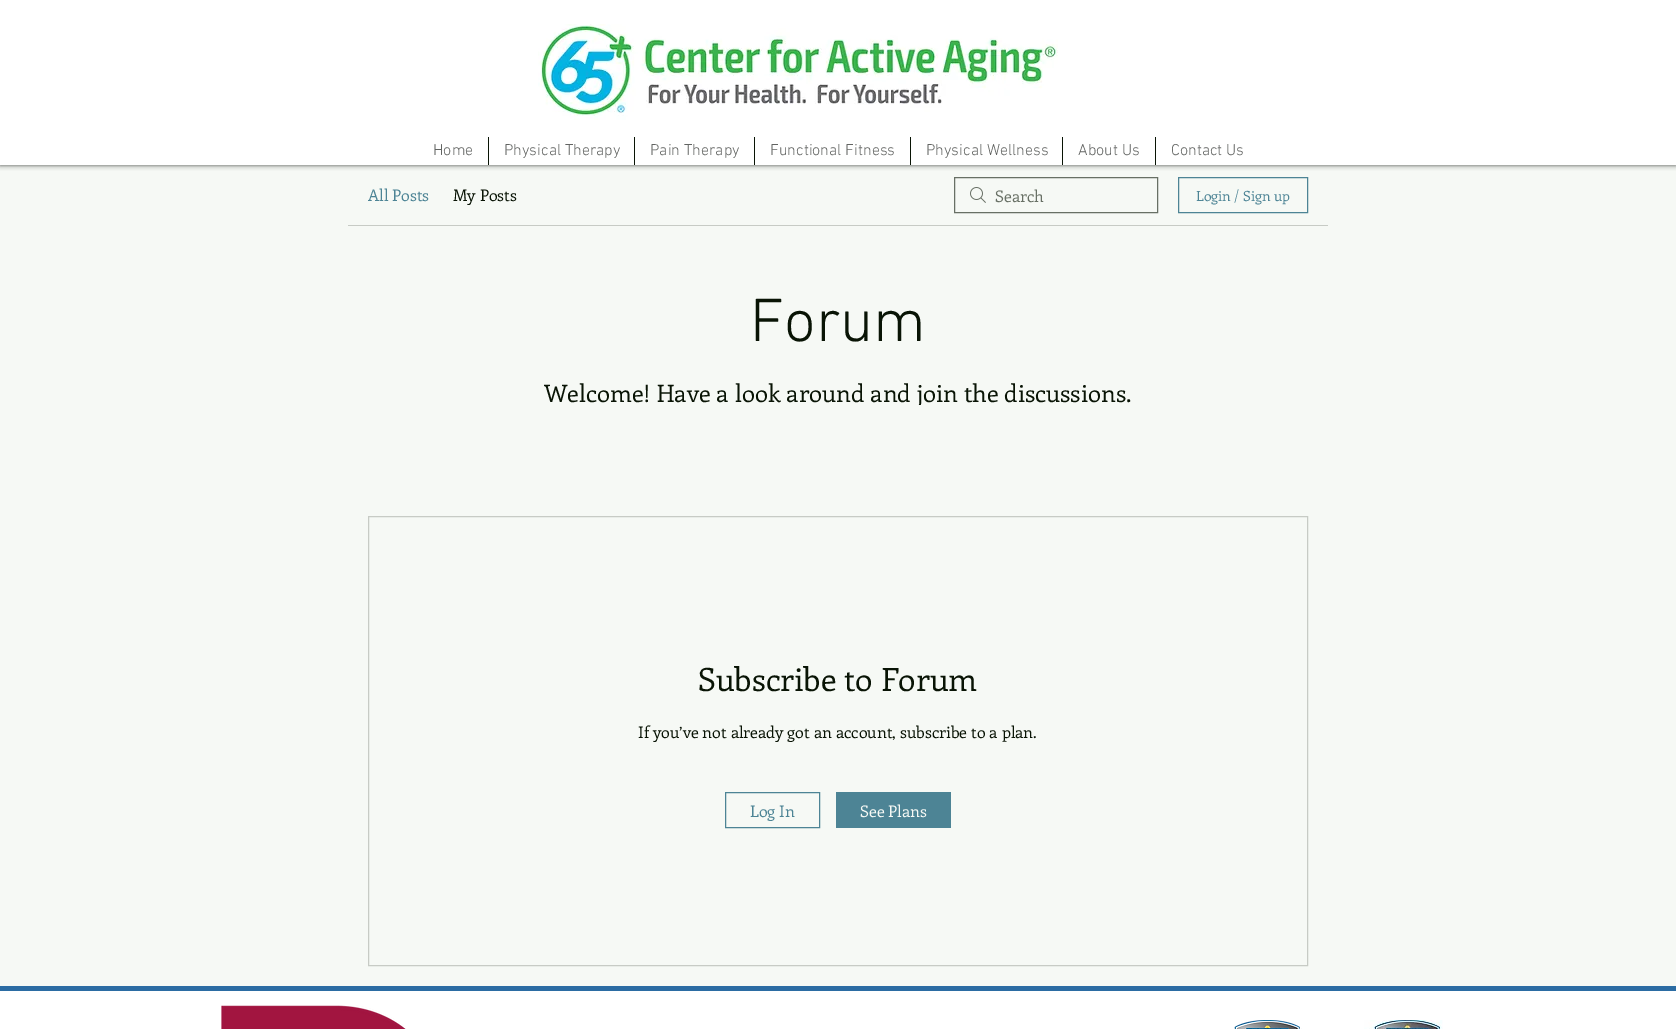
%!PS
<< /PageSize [1676 1029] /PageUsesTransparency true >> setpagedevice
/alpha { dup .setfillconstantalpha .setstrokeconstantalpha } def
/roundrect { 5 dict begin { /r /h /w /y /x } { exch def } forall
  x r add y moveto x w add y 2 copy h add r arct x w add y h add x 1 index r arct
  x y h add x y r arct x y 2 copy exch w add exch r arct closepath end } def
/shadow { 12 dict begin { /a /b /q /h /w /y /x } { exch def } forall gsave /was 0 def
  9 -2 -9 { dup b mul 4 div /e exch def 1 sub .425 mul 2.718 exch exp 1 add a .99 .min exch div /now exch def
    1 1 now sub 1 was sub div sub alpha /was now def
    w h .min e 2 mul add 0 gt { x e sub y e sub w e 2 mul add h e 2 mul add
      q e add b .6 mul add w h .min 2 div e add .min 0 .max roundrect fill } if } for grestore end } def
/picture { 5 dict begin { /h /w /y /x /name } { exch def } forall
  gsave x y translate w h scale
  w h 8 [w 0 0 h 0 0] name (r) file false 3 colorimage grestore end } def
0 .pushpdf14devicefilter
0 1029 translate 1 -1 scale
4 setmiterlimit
0.965 0.976 0.961 setrgbcolor
0 0 1676 1029 rectfill
0 setgray
0 0 1676 165 0 2.5 0.7 shadow
1 setgray
0 0 1676 165 rectfill
(img1.rgb) 538 24 520 96 picture
/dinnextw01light-Light [16 0 0 -16 0 0] selectfont
0.384 0.392 0.384 setrgbcolor
433 155 moveto (Home) show
0.035 0.078 0.02 setrgbcolor
488 137 1 28 rectfill
0.384 0.392 0.384 setrgbcolor
504 155 moveto (Physical Therapy) show
0.035 0.078 0.02 setrgbcolor
634 137 1 28 rectfill
0.384 0.392 0.384 setrgbcolor
650 155 moveto (Pain Therapy) show
0.035 0.078 0.02 setrgbcolor
754 137 1 28 rectfill
0.384 0.392 0.384 setrgbcolor
770 155 moveto (Functional Fitness) show
0.035 0.078 0.02 setrgbcolor
910 137 1 28 rectfill
0.384 0.392 0.384 setrgbcolor
926 155 moveto (Physical Wellness) show
0.035 0.078 0.02 setrgbcolor
1062 137 1 28 rectfill
0.384 0.392 0.384 setrgbcolor
1078 155 moveto (About Us) show
0.035 0.078 0.02 setrgbcolor
1155 137 1 28 rectfill
0.384 0.392 0.384 setrgbcolor
1171 155 moveto (Contact Us) show
0.78 0.796 0.773 setrgbcolor
348 225 980 1 rectfill
/Enriqueta-Regular [16 0 0 -16 0 0] selectfont
0.302 0.518 0.584 setrgbcolor
368 201 moveto (All Posts) show
0.035 0.078 0.02 setrgbcolor
453 201 moveto (My Posts) show
(img2.rgb) 970 187 16 16 picture
0.408 0.439 0.396 setrgbcolor
954.5 177.5 203 35 rectstroke
995 202 moveto (Search) show
0.302 0.518 0.584 setrgbcolor
1178.5 177.5 129 35 rectstroke
/Enriqueta-Regular [14 0 0 -14 0 0] selectfont
1196 201 moveto (Login / Sign up) show
/dinnextw01light-Light [62 0 0 -62 0 0] selectfont
0.035 0.078 0.02 setrgbcolor
750 341 moveto (Forum) show
gsave
498 379 680 26 rectclip
/Enriqueta-Regular [24 0 0 -24 0 0] selectfont
544 402 moveto (Welcome! Have a look around and join the discussions.) show
grestore
0.78 0.796 0.773 setrgbcolor
368.5 516.5 939 449 rectstroke
/Enriqueta-Regular [32 0 0 -32 0 0] selectfont
0.035 0.078 0.02 setrgbcolor
698 691 moveto (Subscribe to Forum) show
/Enriqueta-Regular [16 0 0 -16 0 0] selectfont
638 738 moveto (If you’ve not already got an account, subscribe to a plan.) show
0.302 0.518 0.584 setrgbcolor
725.5 792.5 94 35 rectstroke
750 817 moveto (Log In) show
836 792 115 36 rectfill
0.965 0.976 0.961 setrgbcolor
860 817 moveto (See Plans) show
1 setgray
0 991 1676 38 rectfill
0.169 0.424 0.639 setrgbcolor
0 986 1676 5 rectfill
(img3.rgb) 221 1005 185 24 picture
(img4.rgb) 1234 1020 68 9 picture
(img5.rgb) 1364 1020 79 9 picture
.poppdf14devicefilter showpage
